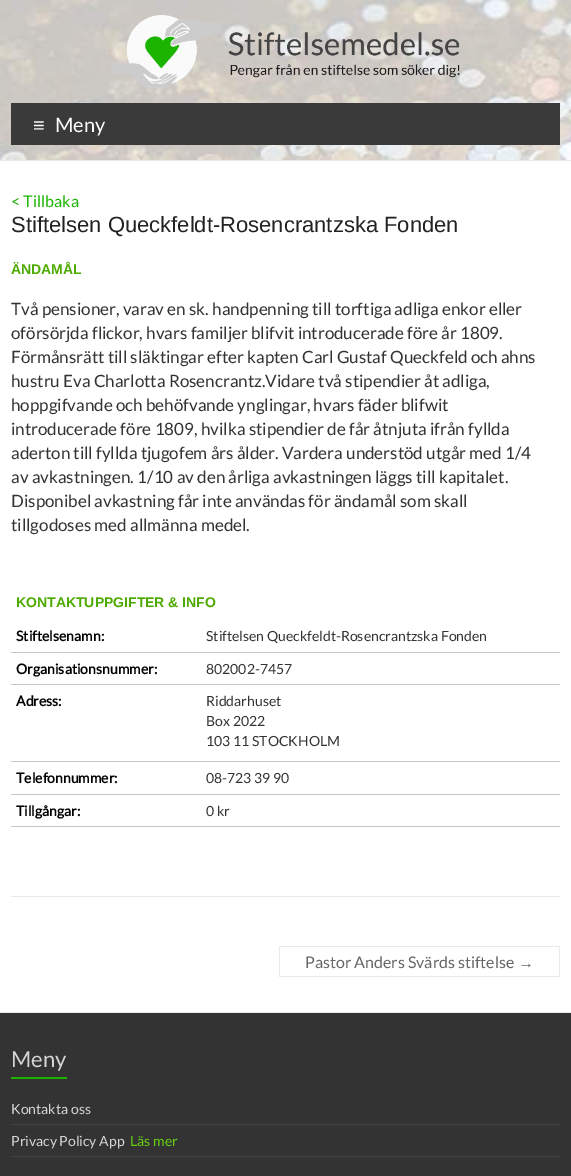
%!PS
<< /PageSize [571 1176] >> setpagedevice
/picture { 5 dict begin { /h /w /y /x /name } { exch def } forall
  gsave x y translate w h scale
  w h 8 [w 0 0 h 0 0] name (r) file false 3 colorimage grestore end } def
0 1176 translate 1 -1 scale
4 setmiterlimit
1 setgray
0 0 571 1176 rectfill
(img1.rgb) 0 0 571 160 picture
0.918 setgray
0 160 571 1 rectfill
(img2.rgb) 111 15 349 73 picture
0.227 setgray
11 103 549 42 rectfill
/LiberationSans-Regular [20 0 0 -20 0 0] selectfont
1 setgray
33 132 moveto (≡) show
/Lato-Regular [20 0 0 -20 0 0] selectfont
55 132 moveto (Meny) show
/Lato-Regular [16 0 0 -16 0 0] selectfont
0.106 0.71 0 setrgbcolor
11 207 moveto (< Tillbaka) show
/LiberationSans-Regular [22 0 0 -22 0 0] selectfont
0.133 setgray
11 232 moveto (Stiftelsen Queckfeldt-Rosencrantzska Fonden) show
/LiberationSans-Bold [14 0 0 -14 0 0] selectfont
0.302 0.671 0 setrgbcolor
11 274 moveto (ÄNDAMÅL) show
/Lato-Regular [17 0 0 -17 0 0] selectfont
0.2 setgray
11 315 moveto (Två pensioner, varav en sk. handpenning till torftiga adliga enkor eller) show
11 339 moveto (oförsörjda flickor, hvars familjer blifvit introducerade före år 1809.) show
11 363 moveto (Förmånsrätt till släktingar efter kapten Carl Gustaf Queckfeld och ahns) show
11 387 moveto (hustru Eva Charlotta Rosencrantz.Vidare två stipendier åt adliga,) show
11 411 moveto (hoppgifvande och behöfvande ynglingar, hvars fäder blifwit) show
11 435 moveto (introducerade före 1809, hvilka stipendier de får åtnjuta ifrån fyllda) show
11 459 moveto (aderton till fyllda tjugofem års ålder. Vardera understöd utgår med 1/4) show
11 483 moveto (av avkastningen. 1/10 av den årliga avkastningen läggs till kapitalet.) show
11 507 moveto (Disponibel avkastning får inte användas för ändamål som skall) show
11 531 moveto (tillgodoses med allmänna medel.) show
/LiberationSans-Bold [14 0 0 -14 0 0] selectfont
0.302 0.671 0 setrgbcolor
16 607 moveto (KONTAKTUPPGIFTER & INFO) show
0.78 setgray
11 652 549 1 rectfill
/Lato-Bold [14 0 0 -14 0 0] selectfont
0 setgray
16 641 moveto (Stiftelsenamn:) show
/Lato-Regular [14 0 0 -14 0 0] selectfont
0.2 setgray
206 641 moveto (Stiftelsen Queckfeldt-Rosencrantzska Fonden) show
0.78 setgray
11 684 549 1 rectfill
/Lato-Bold [14 0 0 -14 0 0] selectfont
0 setgray
16 674 moveto (Organisationsnummer:) show
/Lato-Regular [14 0 0 -14 0 0] selectfont
0.2 setgray
206 674 moveto (802002-7457) show
0.78 setgray
11 761 549 1 rectfill
/Lato-Bold [14 0 0 -14 0 0] selectfont
0 setgray
16 706 moveto (Adress:) show
/Lato-Regular [14 0 0 -14 0 0] selectfont
0.2 setgray
206 706 moveto (Riddarhuset) show
206 726 moveto (Box 2022) show
206 746 moveto (103 11 STOCKHOLM) show
0.78 setgray
11 794 549 1 rectfill
/Lato-Bold [14 0 0 -14 0 0] selectfont
0 setgray
16 783 moveto (Telefonnummer:) show
/Lato-Regular [14 0 0 -14 0 0] selectfont
0.2 setgray
206 783 moveto (08-723 39 90) show
0.78 setgray
11 826 549 1 rectfill
/Lato-Bold [14 0 0 -14 0 0] selectfont
0 setgray
16 816 moveto (Tillgångar:) show
/Lato-Regular [14 0 0 -14 0 0] selectfont
0.2 setgray
206 816 moveto (0 kr) show
0.918 setgray
11 896 549 1 rectfill
/Lato-Regular [16 0 0 -16 0 0] selectfont
0.4 setgray
305 968 moveto (Pastor Anders Svärds stiftelse) show
0.918 setgray
279 946 281 1 rectfill
279 976 239 1 rectfill
279 946 1 31 rectfill
/LiberationSans-Regular [16 0 0 -16 0 0] selectfont
0.4 setgray
518 968 moveto (→) show
0.918 setgray
559 946 1 31 rectfill
518 976 42 1 rectfill
0.2 setgray
0 1013 571 163 rectfill
0.918 setgray
0 1012 571 1 rectfill
/Lato-Regular [22 0 0 -22 0 0] selectfont
0.835 setgray
11 1067 moveto (Meny) show
0.106 0.71 0 setrgbcolor
11 1077 56 2 rectfill
0.267 setgray
11 1124 549 1 rectfill
/Lato-Regular [14 0 0 -14 0 0] selectfont
0.835 setgray
11 1114 moveto (Kontakta oss) show
0.267 setgray
11 1156 549 1 rectfill
0.835 setgray
11 1146 moveto (Privacy Policy App) show
0.404 0.82 0.063 setrgbcolor
130 1146 moveto (Läs mer) show
showpage
